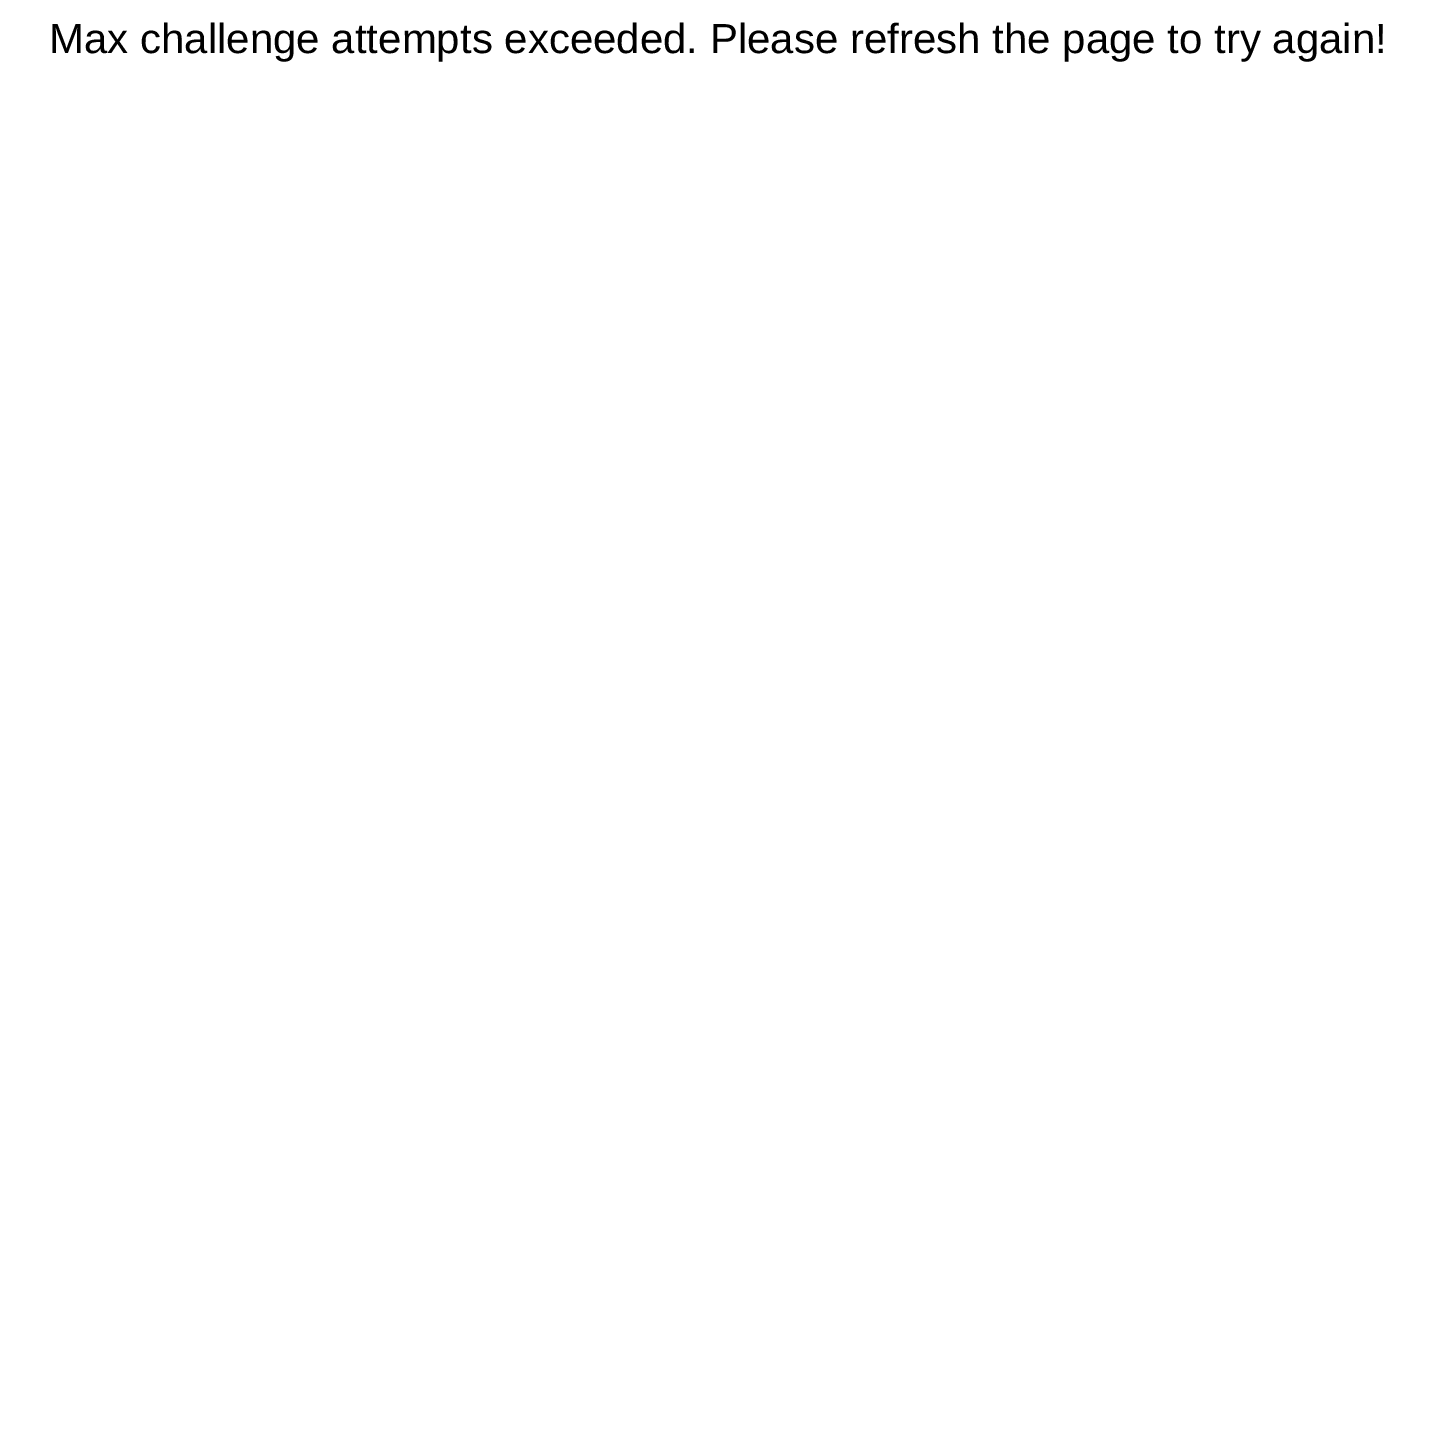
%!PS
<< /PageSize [1455 1449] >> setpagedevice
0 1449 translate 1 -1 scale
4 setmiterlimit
1 setgray
0 0 1455 1449 rectfill
/LiberationSans-Regular [42 0 0 -42 0 0] selectfont
0 setgray
49 53 moveto (Max challenge attempts exceeded. Please refresh the page to try again!) show
showpage
